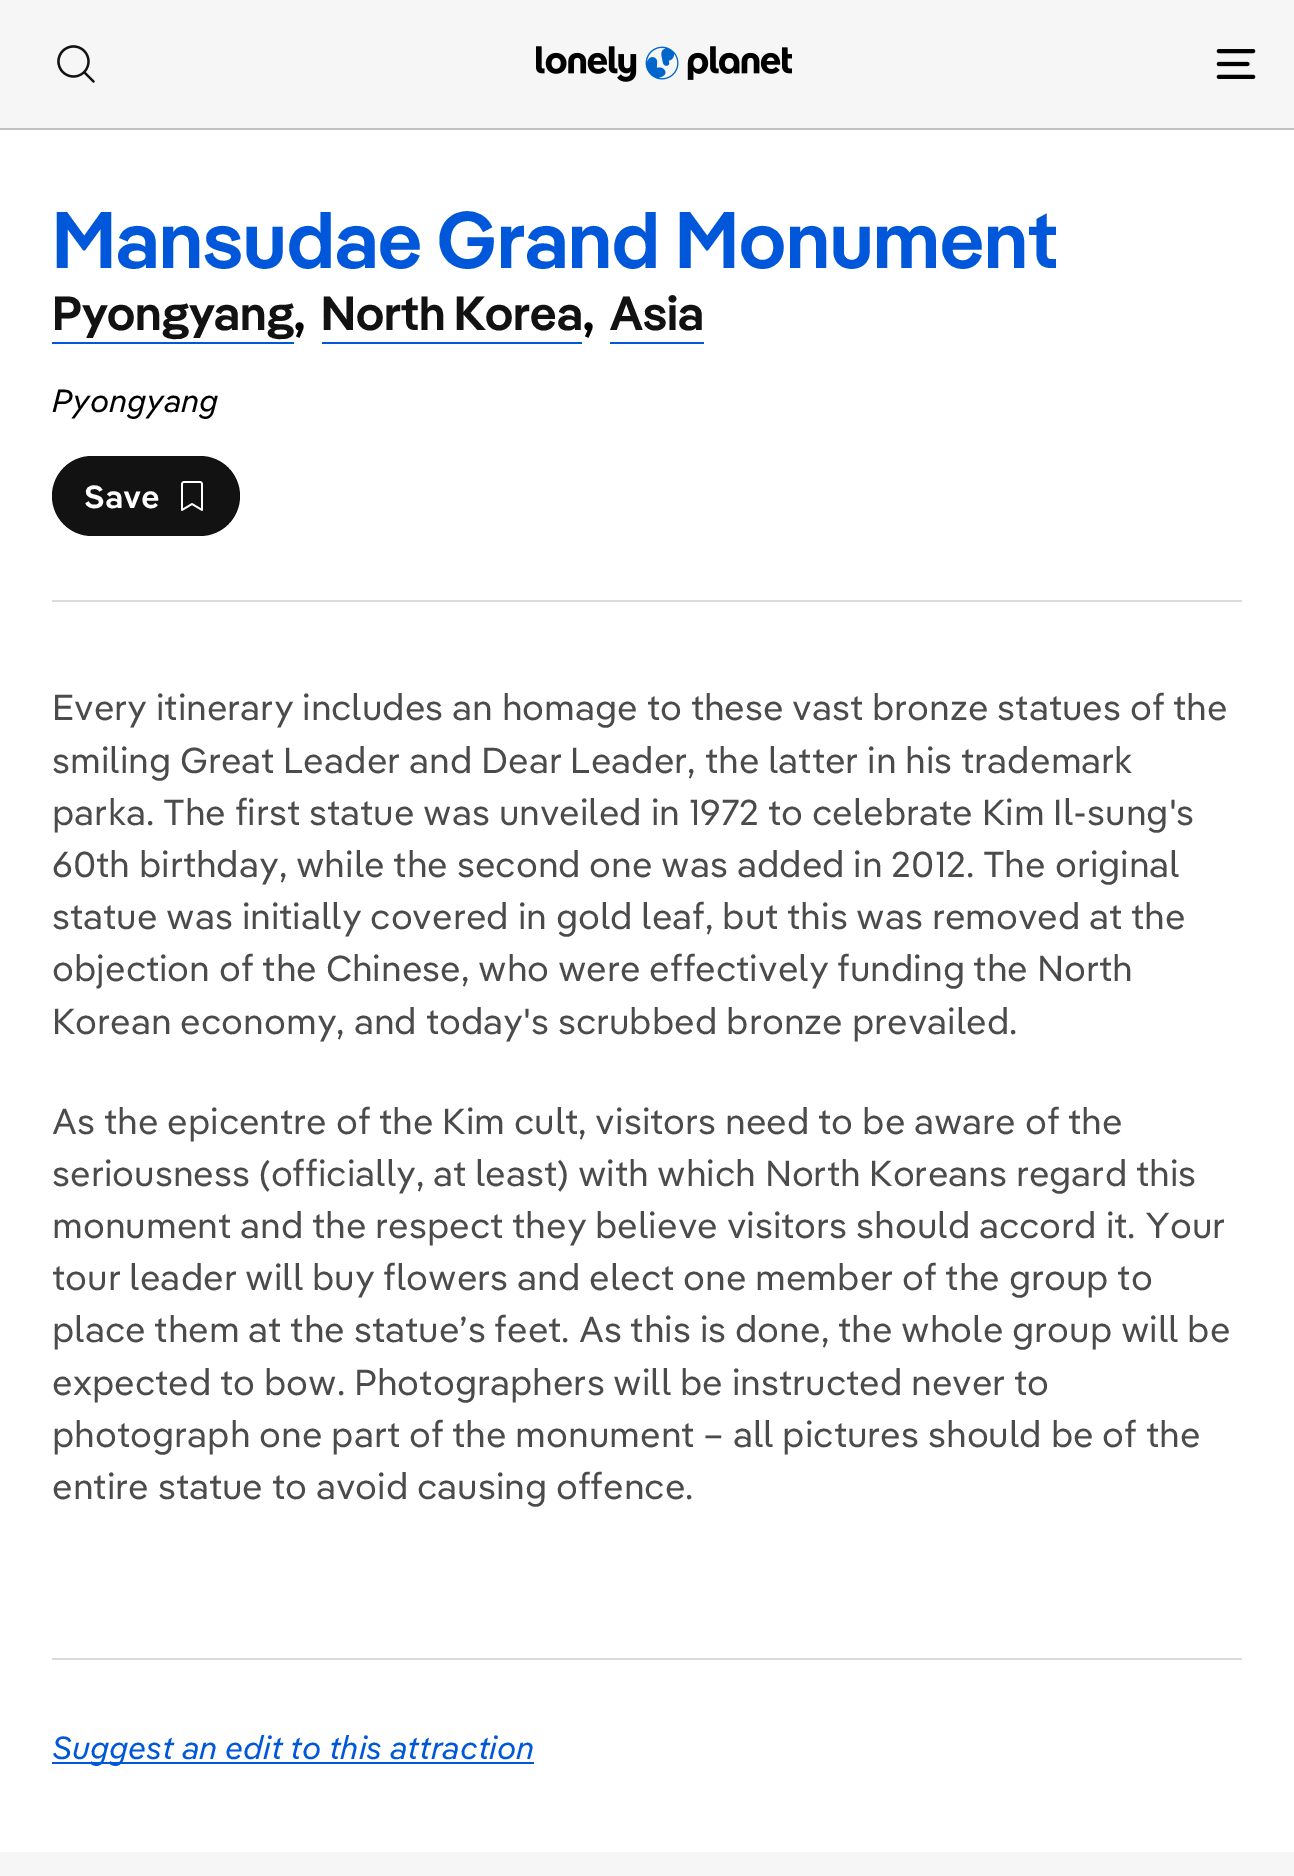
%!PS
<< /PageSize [1294 1876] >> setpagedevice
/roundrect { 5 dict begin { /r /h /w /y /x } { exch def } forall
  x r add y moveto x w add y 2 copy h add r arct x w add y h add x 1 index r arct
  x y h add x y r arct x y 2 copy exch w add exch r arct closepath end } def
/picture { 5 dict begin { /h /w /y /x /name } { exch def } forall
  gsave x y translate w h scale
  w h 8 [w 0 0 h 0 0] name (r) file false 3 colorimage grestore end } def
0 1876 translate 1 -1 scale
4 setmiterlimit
1 setgray
0 0 1294 1876 rectfill
0.965 setgray
0 0 1294 128 rectfill
0.761 setgray
0 128 1294 2 rectfill
(img1.rgb) 57 45 38 38 picture
(img2.rgb) 536 46 256 36 picture
(img3.rgb) 1216 49 40 30 picture
/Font-SemiBold [80 0 0 -80 0 0] selectfont
0 0.341 0.851 setrgbcolor
52 268 moveto (Mansudae Grand Monument) show
/Font-SemiBold [48 0 0 -48 0 0] selectfont
0.071 setgray
52 330 moveto (Pyongyang) show
0 0.341 0.851 setrgbcolor
52 342 242 2 rectfill
0 setgray
294 330 moveto (,) show
0.071 setgray
321 330 moveto (North Korea) show
0 0.341 0.851 setrgbcolor
322 342 260 2 rectfill
0 setgray
583 330 moveto (,) show
0.071 setgray
610 330 moveto (Asia) show
0 0.341 0.851 setrgbcolor
610 342 94 2 rectfill
/Font-Italic [32 0 0 -32 0 0] selectfont
0 setgray
52 412 moveto (Pyongyang) show
0.071 setgray
52 456 188 80 40 roundrect fill
/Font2-SemiBold [32 0 0 -32 0 0] selectfont
1 setgray
84 508 moveto (Save) show
(img4.rgb) 181 481 22 30 picture
0.859 setgray
52 600 1190 2 rectfill
/Font-Regular [36 0 0 -36 0 0] selectfont
0.294 setgray
52 720 moveto (Every itinerary includes an homage to these vast bronze statues of the) show
52 773 moveto (smiling Great Leader and Dear Leader, the latter in his trademark) show
52 825 moveto (parka. The first statue was unveiled in 1972 to celebrate Kim Il-sung's) show
52 877 moveto (60th birthday, while the second one was added in 2012. The original) show
52 929 moveto (statue was initially covered in gold leaf, but this was removed at the) show
52 981 moveto (objection of the Chinese, who were effectively funding the North) show
52 1034 moveto (Korean economy, and today's scrubbed bronze prevailed.) show
52 1134 moveto (As the epicentre of the Kim cult, visitors need to be aware of the) show
52 1186 moveto (seriousness \(officially, at least\) with which North Koreans regard this) show
52 1238 moveto (monument and the respect they believe visitors should accord it. Your) show
52 1290 moveto (tour leader will buy flowers and elect one member of the group to) show
52 1342 moveto (place them at the statue’s feet. As this is done, the whole group will be) show
52 1395 moveto (expected to bow. Photographers will be instructed never to) show
52 1447 moveto (photograph one part of the monument – all pictures should be of the) show
52 1499 moveto (entire statue to avoid causing offence.) show
0.859 setgray
52 1658 1190 2 rectfill
0 0.341 0.851 setrgbcolor
52 1762 482 2 rectfill
/Font-Italic [32 0 0 -32 0 0] selectfont
52 1759 moveto (Suggest an edit to this attraction) show
0.965 setgray
0 1852 1294 24 rectfill
showpage
